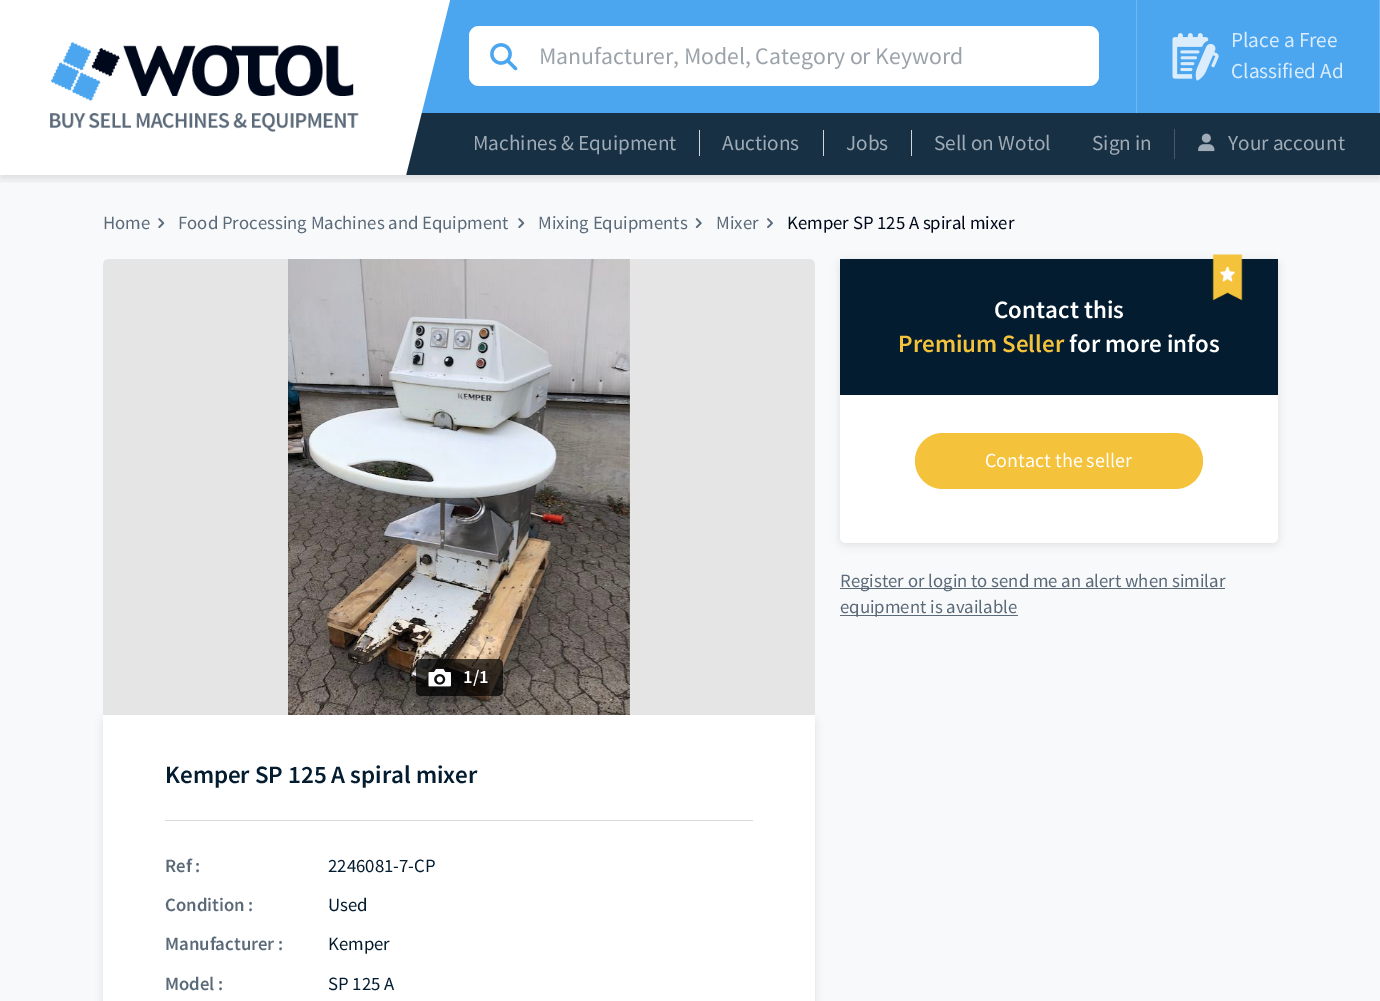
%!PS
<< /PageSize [1380 1001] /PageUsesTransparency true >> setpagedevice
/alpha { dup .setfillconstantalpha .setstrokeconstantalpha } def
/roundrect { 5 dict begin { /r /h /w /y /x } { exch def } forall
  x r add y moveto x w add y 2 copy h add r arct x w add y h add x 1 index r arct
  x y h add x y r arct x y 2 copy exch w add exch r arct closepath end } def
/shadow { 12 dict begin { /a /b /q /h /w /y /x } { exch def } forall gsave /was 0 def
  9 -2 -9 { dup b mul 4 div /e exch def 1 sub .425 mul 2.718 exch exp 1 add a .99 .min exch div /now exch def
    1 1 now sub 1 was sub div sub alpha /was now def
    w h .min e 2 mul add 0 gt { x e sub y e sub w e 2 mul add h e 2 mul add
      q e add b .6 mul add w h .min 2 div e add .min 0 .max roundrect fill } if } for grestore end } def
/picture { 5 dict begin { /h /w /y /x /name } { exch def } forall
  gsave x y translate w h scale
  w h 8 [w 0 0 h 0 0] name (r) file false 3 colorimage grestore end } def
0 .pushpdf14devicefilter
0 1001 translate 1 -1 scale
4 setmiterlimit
1 setgray
0 0 1380 1001 rectfill
0.973 0.976 0.98 setrgbcolor
0 175 1380 826 rectfill
gsave
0 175 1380 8 rectclip
0 setgray
0 4 1380 175 0 4.5 0.11 shadow
grestore
(img1.rgb) 50 42 309 90 picture
0.294 0.651 0.937 setrgbcolor
421 0 958 113 rectfill
0.094 0.188 0.263 setrgbcolor
406 113 974 62 rectfill
1 setgray
newpath 406 0 moveto 450 0 lineto 406 175 lineto closepath fill
newpath 479 26 moveto 524 26 lineto 524 86 lineto 479 86 lineto 473.5 86 469 81.5 469 76 curveto 469 36 lineto 469 30.5 473.5 26 479 26 curveto closepath fill
(img2.rgb) 490 43 28 28 picture
newpath 524 26 moveto 1089 26 lineto 1094.5 26 1099 30.5 1099 36 curveto 1099 76 lineto 1099 81.5 1094.5 86 1089 86 curveto 524 86 lineto closepath fill
/SourceSansPro-Regular [23.75 0 0 -23.75 0 0] selectfont
0.604 0.635 0.667 setrgbcolor
539 64 moveto (Manufacturer, Model, Category or Keyword) show
0.435 0.722 0.949 setrgbcolor
1379 0 1 113 rectfill
1136 0 1 113 rectfill
(img3.rgb) 1172 33 47 48 picture
/SourceSansPro-Regular [21.25 0 0 -21.25 0 0] selectfont
0.859 0.929 0.988 setrgbcolor
1231 47 moveto (Place a Free) show
1231 78 moveto (Classified Ad) show
0.624 0.671 0.714 setrgbcolor
473 150 moveto (Machines & Equipment) show
0.82 0.839 0.851 setrgbcolor
699 130 1 26 rectfill
0.624 0.671 0.714 setrgbcolor
722 150 moveto (Auctions) show
0.82 0.839 0.851 setrgbcolor
823 130 1 26 rectfill
0.624 0.671 0.714 setrgbcolor
846 150 moveto (Jobs) show
0.82 0.839 0.851 setrgbcolor
911 130 1 26 rectfill
0.624 0.671 0.714 setrgbcolor
934 150 moveto (Sell on Wotol) show
1092 150 moveto (Sign in) show
0.275 0.349 0.412 setrgbcolor
1174 129 1 30 rectfill
(img4.rgb) 1198 133 17 19 picture
0.624 0.671 0.714 setrgbcolor
1228 150 moveto (Your account) show
/SourceSansPro-Regular [18.75 0 0 -18.75 0 0] selectfont
0.357 0.416 0.475 setrgbcolor
103 229 moveto (Home) show
(img5.rgb) 158 218 7 10 picture
178 229 moveto (Food Processing Machines and Equipment) show
(img5.rgb) 518 218 7 10 picture
538 229 moveto (Mixing Equipments) show
(img6.rgb) 695 218 7 10 picture
716 229 moveto (Mixer) show
(img7.rgb) 767 218 6 10 picture
0 0.031 0.106 setrgbcolor
787 229 moveto (Kemper SP 125 A spiral mixer) show
0 setgray
840 261 438 284 6 4.5 0.1 shadow
1 setgray
840 259 438 284 6 roundrect fill
0.012 0.11 0.184 setrgbcolor
840 259 438 136 rectfill
(img8.rgb) 1212 254 31 47 picture
/SourceSansPro-SemiBold [25 0 0 -25 0 0] selectfont
1 setgray
994 318 moveto (Contact this) show
0.957 0.761 0.231 setrgbcolor
898 352 moveto (Premium Seller) show
1 setgray
1069 352 moveto (for more infos) show
0.957 0.761 0.231 setrgbcolor
915 433 288 56 28 roundrect fill
/SourceSansPro-Regular [20 0 0 -20 0 0] selectfont
1 setgray
985 467 moveto (Contact the seller) show
0.357 0.416 0.475 setrgbcolor
840 588 385 1 rectfill
/SourceSansPro-Regular [18.75 0 0 -18.75 0 0] selectfont
840 587 moveto (Register or login to send me an alert when similar) show
840 615 178 1 rectfill
840 613 moveto (equipment is available) show
0 setgray
103 718 712 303 6 4.5 0.1 shadow
0.898 setgray
newpath 109 259 moveto 809 259 lineto 812.5 259 815 261.5 815 265 curveto 815 715 lineto 103 715 lineto 103 265 lineto 103 261.5 105.5 259 109 259 curveto closepath fill
(img9.rgb) 288 259 342 456 picture
0.7 alpha
0 setgray
416 659 87 37 5 roundrect fill
1 alpha
(img10.rgb) 428 668 23 19 picture
/SourceSansPro-SemiBold [18.75 0 0 -18.75 0 0] selectfont
1 setgray
463 683 moveto (1/1) show
103 715 712 286 rectfill
/SourceSansPro-SemiBold [25 0 0 -25 0 0] selectfont
0.012 0.11 0.184 setrgbcolor
165 783 moveto (Kemper SP 125 A spiral mixer) show
0.851 setgray
165 820 588 1 rectfill
/SourceSansPro-SemiBold [18.75 0 0 -18.75 0 0] selectfont
0.357 0.416 0.475 setrgbcolor
165 872 moveto (Ref :) show
/SourceSansPro-Regular [18.75 0 0 -18.75 0 0] selectfont
0.012 0.11 0.184 setrgbcolor
328 872 moveto (2246081-7-CP) show
/SourceSansPro-SemiBold [18.75 0 0 -18.75 0 0] selectfont
0.357 0.416 0.475 setrgbcolor
165 911 moveto (Condition :) show
/SourceSansPro-Regular [18.75 0 0 -18.75 0 0] selectfont
0.012 0.11 0.184 setrgbcolor
328 911 moveto (Used) show
/SourceSansPro-SemiBold [18.75 0 0 -18.75 0 0] selectfont
0.357 0.416 0.475 setrgbcolor
165 950 moveto (Manufacturer :) show
/SourceSansPro-Regular [18.75 0 0 -18.75 0 0] selectfont
0.012 0.11 0.184 setrgbcolor
328 950 moveto (Kemper) show
/SourceSansPro-SemiBold [18.75 0 0 -18.75 0 0] selectfont
0.357 0.416 0.475 setrgbcolor
165 990 moveto (Model :) show
/SourceSansPro-Regular [18.75 0 0 -18.75 0 0] selectfont
0.012 0.11 0.184 setrgbcolor
328 990 moveto (SP 125 A) show
.poppdf14devicefilter showpage
